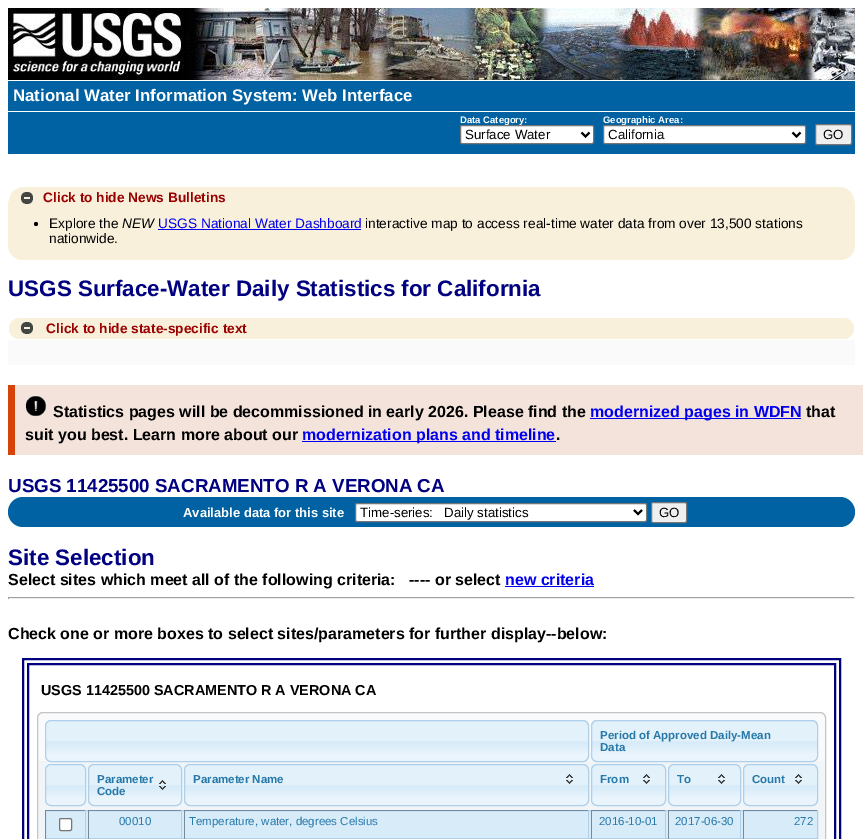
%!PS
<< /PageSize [863 839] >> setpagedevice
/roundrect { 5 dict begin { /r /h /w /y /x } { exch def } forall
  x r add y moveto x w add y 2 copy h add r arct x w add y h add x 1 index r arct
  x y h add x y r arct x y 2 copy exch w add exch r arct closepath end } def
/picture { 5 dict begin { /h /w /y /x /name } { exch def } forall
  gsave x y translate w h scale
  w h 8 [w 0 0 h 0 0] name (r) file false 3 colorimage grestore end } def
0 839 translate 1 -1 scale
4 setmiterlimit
1 setgray
0 0 863 839 rectfill
0 setgray
184 8 2 72 rectfill
(img1.rgb) 186 8 669 72 picture
(img2.rgb) 8 8 176 72 picture
0 0.38 0.639 setrgbcolor
8 81 847 30 rectfill
/LiberationSans-Bold [16.8 0 0 -16.8 0 0] selectfont
1 setgray
13 101 moveto (National Water Information System: Web Interface) show
0 0.38 0.639 setrgbcolor
8 112 847 42 rectfill
/LiberationSans-Bold [9.5 0 0 -9.5 0 0] selectfont
1 setgray
460 123 moveto (Data Category:) show
460.5 125.5 133 18 1.5 roundrect gsave fill grestore
0.463 setgray
stroke
0 setgray
2 setlinewidth
newpath 581.5 132.5 moveto 585.5 136.5 lineto 589.5 132.5 lineto stroke
/LiberationSans-Regular [13.3 0 0 -13.3 0 0] selectfont
465 139 moveto (Surface Water) show
/LiberationSans-Bold [9.5 0 0 -9.5 0 0] selectfont
1 setgray
603 123 moveto (Geographic Area:) show
603.5 125.5 202 18 1.5 roundrect gsave fill grestore
0.463 setgray
1 setlinewidth
stroke
0 setgray
2 setlinewidth
newpath 792.5 132.5 moveto 796.5 136.5 lineto 800.5 132.5 lineto stroke
/LiberationSans-Regular [13.3 0 0 -13.3 0 0] selectfont
608 139 moveto (California) show
0.937 setgray
815.5 124.5 36 20 1.5 roundrect gsave fill grestore
0.463 setgray
1 setlinewidth
stroke
0 setgray
823 139 moveto (GO) show
0.973 0.941 0.859 setrgbcolor
newpath 8 201 moveto 855 201 lineto 855 245 lineto 855 253.5 848.5 260 840 260 curveto 23 260 lineto 14.5 260 8 253.5 8 245 curveto closepath fill
newpath 24 187 moveto 839 187 lineto 847.5 187 854 193.5 854 202 curveto 854 208 lineto 9 208 lineto 9 202 lineto 9 193.5 15.5 187 24 187 curveto closepath fill
(img3.rgb) 21 192 12 12 picture
/LiberationSans-Bold [13.7 0 0 -13.7 0 0] selectfont
0.6 0 0 setrgbcolor
43 202 moveto (Click to hide News Bulletins) show
0 setgray
newpath 36 224 2 0 360 arc closepath fill
/LiberationSans-Regular [13.7 0 0 -13.7 0 0] selectfont
49 228 moveto (Explore the) show
/LiberationSans-Italic [13.7 0 0 -13.7 0 0] selectfont
122 228 moveto (NEW) show
/LiberationSans-Regular [13.7 0 0 -13.7 0 0] selectfont
0 0 0.933 setrgbcolor
158 228 moveto (USGS National Water Dashboard) show
158 229 203 1 rectfill
0 setgray
365 228 moveto (interactive map to access real-time water data from over 13,500 stations) show
49 243 moveto (nationwide.) show
/LiberationSans-Bold [22.4 0 0 -22.4 0 0] selectfont
0 0 0.502 setrgbcolor
8 296 moveto (USGS Surface-Water Daily Statistics for California) show
0.973 0.941 0.859 setrgbcolor
9 318 845 21 10.5 roundrect fill
(img3.rgb) 21 322 12 12 picture
/LiberationSans-Bold [13.7 0 0 -13.7 0 0] selectfont
0.6 0 0 setrgbcolor
46 333 moveto (Click to hide state-specific text) show
0.98 setgray
8 340 847 25 rectfill
0.957 0.89 0.859 setrgbcolor
15 385 848 70 rectfill
0.835 0.263 0.035 setrgbcolor
8 385 7 70 rectfill
(img4.rgb) 25 395 22 22 picture
/LiberationSans-Bold [16 0 0 -16 0 0] selectfont
0 setgray
53 417 moveto (Statistics pages will be decommissioned in early 2026. Please find the) show
0 0 0.933 setrgbcolor
590 418 211 1 rectfill
590 417 moveto (modernized pages in WDFN) show
0 setgray
806 417 moveto (that) show
25 440 moveto (suit you best. Learn more about our) show
0 0 0.933 setrgbcolor
302 441 254 1 rectfill
302 440 moveto (modernization plans and timeline) show
0 setgray
556 440 moveto (.) show
/LiberationSans-Bold [18.75 0 0 -18.75 0 0] selectfont
0 0 0.502 setrgbcolor
8 492 moveto (USGS 11425500 SACRAMENTO R A VERONA CA) show
0 0.38 0.639 setrgbcolor
8 497 847 30 15 roundrect fill
/LiberationSans-Bold [13 0 0 -13 0 0] selectfont
1 setgray
183 517 moveto (Available data for this site) show
355.5 503.5 291 18 1.5 roundrect gsave fill grestore
0.463 setgray
stroke
0 setgray
2 setlinewidth
newpath 634 510 moveto 638 514 lineto 642 510 lineto stroke
/LiberationSans-Regular [13.3 0 0 -13.3 0 0] selectfont
360 517 moveto (Time-series:   Daily statistics) show
0.937 setgray
651.5 502.5 35 20 1.5 roundrect gsave fill grestore
0.463 setgray
1 setlinewidth
stroke
0 setgray
659 517 moveto (GO) show
/LiberationSans-Bold [22.4 0 0 -22.4 0 0] selectfont
0 0 0.502 setrgbcolor
8 565 moveto (Site Selection) show
/LiberationSans-Bold [16 0 0 -16 0 0] selectfont
0 setgray
8 585 moveto (Select sites which meet all of the following criteria:   ---- or select) show
0 0 0.933 setrgbcolor
505 585 moveto (new criteria) show
505 586 89 1 rectfill
0.624 setgray
8 597 847 1 rectfill
0.933 setgray
854 597 1 2 rectfill
8 598 847 1 rectfill
0.624 setgray
8 597 1 2 rectfill
0 setgray
8 639 moveto (Check one or more boxes to select sites/parameters for further display--below:) show
0 0 0.502 setrgbcolor
2 setlinewidth
23 659 817 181 rectstroke
28 664 807 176 rectstroke
/LiberationSans-Bold [14.4 0 0 -14.4 0 0] selectfont
0 setgray
41 695 moveto (USGS 11425500 SACRAMENTO R A VERONA CA) show
0.949 0.961 0.969 setrgbcolor
37 712 789 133 6 roundrect fill
(img5.rgb) 37 713 789 48 picture
0.773 setgray
1 setlinewidth
37.5 712.5 788 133 5.5 roundrect stroke
(img6.rgb) 45 720 544 42 picture
0.682 0.816 0.918 setrgbcolor
45.5 720.5 543 41 5.5 roundrect stroke
(img7.rgb) 591 720 227 42 picture
591.5 720.5 226 41 5.5 roundrect stroke
/LiberationSans-Bold [11.5 0 0 -11.5 0 0] selectfont
0.153 0.475 0.667 setrgbcolor
600 739 moveto (Period of Approved Daily-Mean) show
600 751 moveto (Data) show
(img8.rgb) 45 764 41 42 picture
0.682 0.816 0.918 setrgbcolor
45.5 764.5 40 41 5.5 roundrect stroke
(img9.rgb) 88 764 94 42 picture
88.5 764.5 93 41 5.5 roundrect stroke
0.153 0.475 0.667 setrgbcolor
97 783 moveto (Parameter) show
(img10.rgb) 159 780 7 10 picture
97 795 moveto (Code) show
(img11.rgb) 184 764 405 42 picture
0.682 0.816 0.918 setrgbcolor
184.5 764.5 404 41 5.5 roundrect stroke
0.153 0.475 0.667 setrgbcolor
193 783 moveto (Parameter Name) show
(img12.rgb) 566 774 7 10 picture
(img13.rgb) 591 764 75 42 picture
0.682 0.816 0.918 setrgbcolor
591.5 764.5 74 41 5.5 roundrect stroke
0.153 0.475 0.667 setrgbcolor
600 783 moveto (From) show
(img12.rgb) 643 774 7 10 picture
(img14.rgb) 668 764 73 42 picture
0.682 0.816 0.918 setrgbcolor
668.5 764.5 72 41 5.5 roundrect stroke
0.153 0.475 0.667 setrgbcolor
677 783 moveto (To) show
(img12.rgb) 718 774 7 10 picture
(img13.rgb) 743 764 75 42 picture
0.682 0.816 0.918 setrgbcolor
743.5 764.5 74 41 5.5 roundrect stroke
0.153 0.475 0.667 setrgbcolor
752 783 moveto (Count) show
(img12.rgb) 795 774 7 10 picture
0.843 0.922 0.976 setrgbcolor
newpath 45.5 810.5 moveto 817.5 810.5 lineto 817.5 838.5 lineto 45.5 838.5 lineto closepath gsave fill grestore
0.682 0.816 0.918 setrgbcolor
stroke
0.455 0.545 0.612 setrgbcolor
45 810 41 1 rectfill
0.682 0.816 0.918 setrgbcolor
85 810 1 29 rectfill
0.455 0.545 0.612 setrgbcolor
45 810 1 29 rectfill
1 setgray
59.5 818.5 12 12 1.5 roundrect gsave fill grestore
0.463 setgray
stroke
0.455 0.545 0.612 setrgbcolor
88 810 94 1 rectfill
0.682 0.816 0.918 setrgbcolor
181 810 1 29 rectfill
0.455 0.545 0.612 setrgbcolor
88 810 1 29 rectfill
/LiberationSans-Regular [11.5 0 0 -11.5 0 0] selectfont
0.153 0.475 0.667 setrgbcolor
119 825 moveto (00010) show
0.455 0.545 0.612 setrgbcolor
184 810 405 1 rectfill
0.682 0.816 0.918 setrgbcolor
588 810 1 29 rectfill
0.455 0.545 0.612 setrgbcolor
184 810 1 29 rectfill
0.153 0.475 0.667 setrgbcolor
189 825 moveto (Temperature, water, degrees Celsius) show
0.455 0.545 0.612 setrgbcolor
591 810 75 1 rectfill
0.682 0.816 0.918 setrgbcolor
665 810 1 29 rectfill
0.455 0.545 0.612 setrgbcolor
591 810 1 29 rectfill
0.153 0.475 0.667 setrgbcolor
599 825 moveto (2016-10-01) show
0.455 0.545 0.612 setrgbcolor
668 810 73 1 rectfill
0.682 0.816 0.918 setrgbcolor
740 810 1 29 rectfill
0.455 0.545 0.612 setrgbcolor
668 810 1 29 rectfill
0.153 0.475 0.667 setrgbcolor
675 825 moveto (2017-06-30) show
0.455 0.545 0.612 setrgbcolor
743 810 75 1 rectfill
0.682 0.816 0.918 setrgbcolor
817 810 1 1 rectfill
0.455 0.545 0.612 setrgbcolor
743 810 1 29 rectfill
0.153 0.475 0.667 setrgbcolor
794 825 moveto (272) show
showpage
